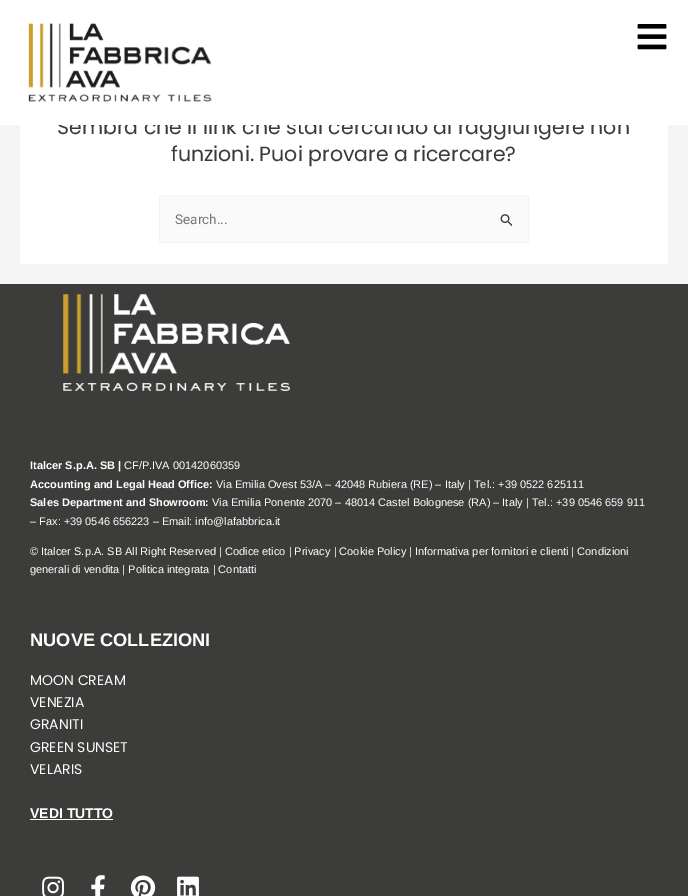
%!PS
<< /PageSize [688 896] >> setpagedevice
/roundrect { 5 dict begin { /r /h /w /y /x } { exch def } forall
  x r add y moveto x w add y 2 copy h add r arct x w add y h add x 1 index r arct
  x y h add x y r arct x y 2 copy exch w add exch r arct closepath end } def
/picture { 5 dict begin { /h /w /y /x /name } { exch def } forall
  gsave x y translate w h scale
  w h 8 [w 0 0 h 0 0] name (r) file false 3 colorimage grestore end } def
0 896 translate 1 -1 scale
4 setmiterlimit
0.961 setgray
0 0 688 896 rectfill
1 setgray
20 125 648 139 rectfill
/Poppins-Regular [20.5 0 0 -20.5 0 0] selectfont
0.227 setgray
57 134 moveto (Sembra che il link che stai cercando di raggiungere non) show
1 setgray
0 0 688 125 rectfill
(img1.rgb) 28 23 184 79 picture
(img2.rgb) 637 24 30 26 picture
0.227 setgray
171 161 moveto (funzioni. Puoi provare a ricercare?) show
0.98 setgray
159.5 195.5 369 47 1.5 roundrect gsave fill grestore
0.949 0.961 0.969 setrgbcolor
stroke
/Roboto-Regular [13.5 0 0 -13.5 0 0] selectfont
0.459 setgray
175 224 moveto (Search...) show
(img3.rgb) 500 214 12 12 picture
0.235 0.235 0.231 setrgbcolor
0 284 688 612 rectfill
(img4.rgb) 63 294 227 97 picture
/LiberationSans-Bold [11 0 0 -11 0 0] selectfont
1 setgray
30 469 moveto (Italcer S.p.A. SB |) show
/LiberationSans-Regular [11 0 0 -11 0 0] selectfont
124 469 moveto (CF/P.IVA 00142060359) show
/LiberationSans-Bold [11 0 0 -11 0 0] selectfont
30 488 moveto (Accounting and Legal Head Office:) show
/LiberationSans-Regular [11 0 0 -11 0 0] selectfont
216 488 moveto (Via Emilia Ovest 53/A – 42048 Rubiera \(RE\) – Italy | Tel.: +39 0522 625111) show
/LiberationSans-Bold [11 0 0 -11 0 0] selectfont
30 506 moveto (Sales Department and Showroom:) show
/LiberationSans-Regular [11 0 0 -11 0 0] selectfont
212 506 moveto (Via Emilia Ponente 2070 – 48014 Castel Bolognese \(RA\) – Italy | Tel.: +39 0546 659 911) show
30 525 moveto (– Fax: +39 0546 656223 – Email: info@lafabbrica.it) show
30 555 moveto (© Italcer S.p.A. SB All Right Reserved | Codice etico | Privacy | Cookie Policy | Informativa per fornitori e clienti | Condizioni) show
30 573 moveto (generali di vendita | Politica integrata | Contatti) show
/LiberationSans-Bold [18.25 0 0 -18.25 0 0] selectfont
30 646 moveto (NUOVE COLLEZIONI) show
/Poppins-Regular [14 0 0 -14 0 0] selectfont
30 685 moveto (MOON CREAM) show
30 707 moveto (VENEZIA) show
30 729 moveto (GRANITI) show
30 752 moveto (GREEN SUNSET) show
30 774 moveto (VELARIS) show
/LiberationSans-Bold [14 0 0 -14 0 0] selectfont
30 818 moveto (VEDI TUTTO) show
30 819 83 1 rectfill
(img5.rgb) 42 876 22 20 picture
(img6.rgb) 91 875 14 21 picture
(img7.rgb) 130 875 26 21 picture
(img8.rgb) 177 876 22 20 picture
showpage
